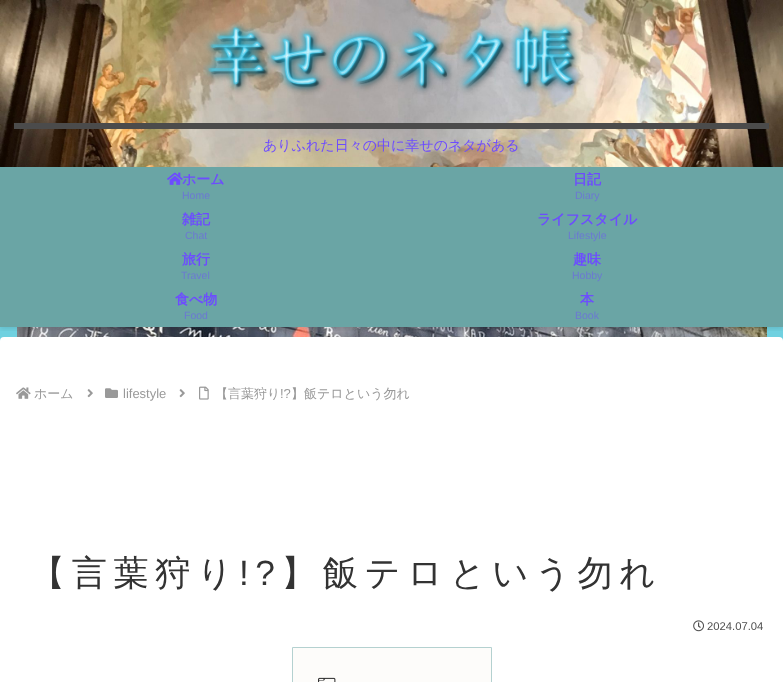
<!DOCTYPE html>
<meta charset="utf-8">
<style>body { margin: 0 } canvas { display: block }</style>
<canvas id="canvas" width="783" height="682"></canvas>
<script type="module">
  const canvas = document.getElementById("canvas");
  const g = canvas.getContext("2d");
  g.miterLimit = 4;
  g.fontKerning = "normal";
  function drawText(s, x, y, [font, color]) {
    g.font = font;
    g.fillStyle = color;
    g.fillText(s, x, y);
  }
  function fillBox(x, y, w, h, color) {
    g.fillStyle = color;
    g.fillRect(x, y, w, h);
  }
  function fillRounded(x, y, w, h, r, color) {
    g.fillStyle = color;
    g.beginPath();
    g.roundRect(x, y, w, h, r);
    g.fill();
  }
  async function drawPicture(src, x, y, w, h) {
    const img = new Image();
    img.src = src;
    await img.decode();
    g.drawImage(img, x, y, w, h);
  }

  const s1 = ["500 14px WenQuanYi Zen Hei", "#6D4CFF"];
  const s2 = ["bold 14px WenQuanYi Zen Hei", "#6D4CFF"];
  const s3 = ["10.5px Liberation Sans", "#6C79D2"];
  const s4 = ["500 13px WenQuanYi Zen Hei", "#999999"];
  const s5 = ["13px Liberation Sans", "#999999"];
  const s6 = ["500 35.25px WenQuanYi Zen Hei", "#333333"];
  const s7 = ["35.25px Liberation Sans", "#333333"];
  const s8 = ["11.25px Liberation Sans", "#4F4F4F"];

  fillBox(0, 0, 783, 682, "#70D1E0");
  await drawPicture("pic1.png", 17, 327, 750, 10);
  fillBox(0, 167, 783, 160, "#6AA5A5");
  g.save();
  g.beginPath();
  g.rect(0, 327, 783, 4);
  g.clip();
  g.fillStyle = "rgba(0, 0, 0, 0.1)";
  g.filter = "blur(2.5px)";
  g.beginPath();
  g.rect(0, 2, 783, 327);
  g.fill();
  g.filter = "none";
  g.restore();
  await drawPicture("pic2.png", 0, 0, 783, 167);
  await drawPicture("pic3.png", 203, 20, 378, 75);
  fillBox(14, 123, 755, 6, "#4B4B4B");
  drawText("ありふれた日々の中に幸せのネタがある", 263, 150, s1);
  await drawPicture("pic4.png", 167, 172, 16, 13);
  drawText("ホーム", 182, 184, s2);
  drawText("Home", 182, 199, s3);
  drawText("日記", 573, 184, s2);
  drawText("Diary", 575, 199, s3);
  drawText("雑記", 182, 224, s2);
  drawText("Chat", 185, 239, s3);
  drawText("ライフスタイル", 537, 224, s2);
  drawText("Lifestyle", 568, 239, s3);
  drawText("旅行", 182, 264, s2);
  drawText("Travel", 181, 279, s3);
  drawText("趣味", 573, 264, s2);
  drawText("Hobby", 572, 279, s3);
  drawText("食べ物", 175, 304, s2);
  drawText("Food", 184, 319, s3);
  drawText("本", 580, 304, s2);
  drawText("Book", 575, 319, s3);
  fillRounded(0, 337, 783, 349, 4, "#FFFFFF");
  await drawPicture("pic5.png", 16, 387, 15, 12);
  drawText("ホーム", 34, 398, s4);
  await drawPicture("pic6.png", 87, 389, 6, 9);
  await drawPicture("pic7.png", 105, 388, 13, 10);
  drawText("lifestyle", 123, 398, s5);
  await drawPicture("pic6.png", 179, 389, 6, 9);
  await drawPicture("pic8.png", 199, 386, 10, 14);
  drawText("【言葉狩り", 215, 398, s4);
  drawText("!?", 280, 398, s5);
  drawText("】飯テロという勿れ", 291, 398, s4);
  g.letterSpacing = "6.5px";
  drawText("【言葉狩り", 30, 585, s6);
  drawText("!?", 239, 585, s7);
  drawText("】飯テロという勿れ", 281, 585, s6);
  await drawPicture("pic9.png", 693, 620, 11, 12);
  g.letterSpacing = "0px";
  drawText("2024.07.04", 707, 630, s8);
  g.fillStyle = "#FDFCFA";
  g.beginPath();
  g.rect(292.5, 647.5, 199, 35);
  g.fill();
  g.strokeStyle = "#B4D1D0";
  g.stroke();
  await drawPicture("pic10.png", 318, 677, 18, 5);
</script>
